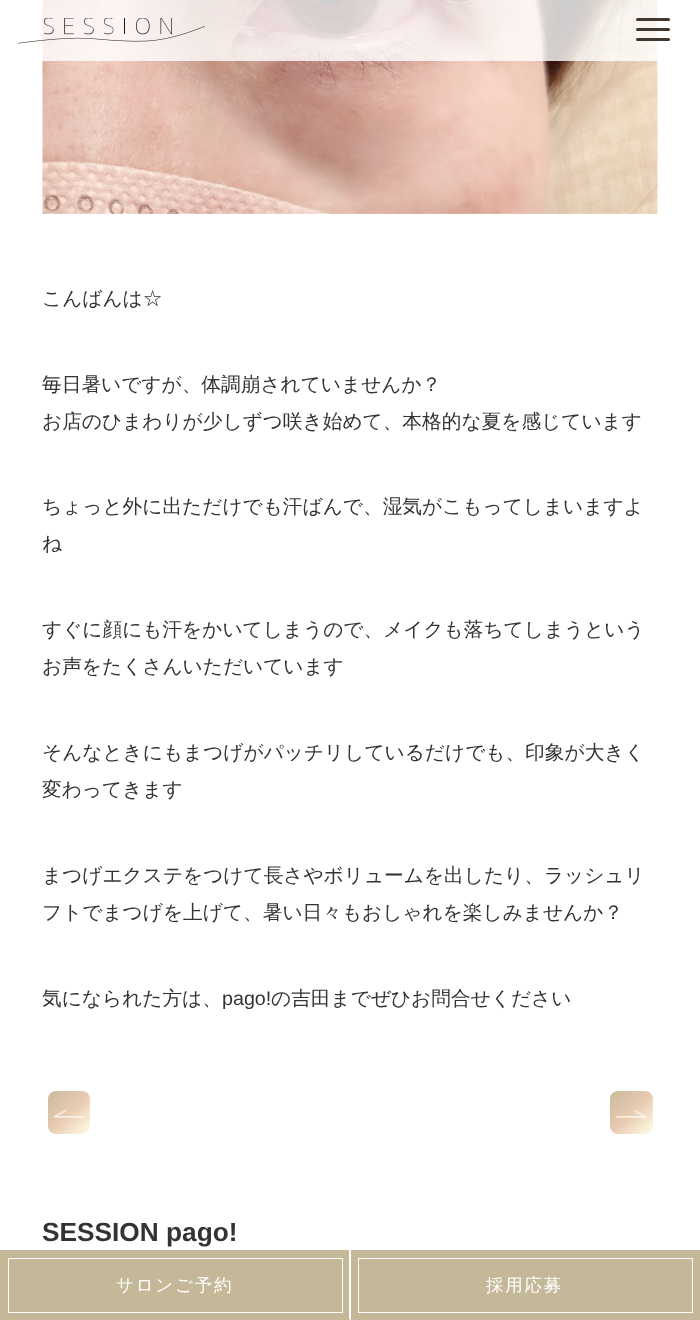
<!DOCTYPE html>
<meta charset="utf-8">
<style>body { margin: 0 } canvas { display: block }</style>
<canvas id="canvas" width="700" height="1320"></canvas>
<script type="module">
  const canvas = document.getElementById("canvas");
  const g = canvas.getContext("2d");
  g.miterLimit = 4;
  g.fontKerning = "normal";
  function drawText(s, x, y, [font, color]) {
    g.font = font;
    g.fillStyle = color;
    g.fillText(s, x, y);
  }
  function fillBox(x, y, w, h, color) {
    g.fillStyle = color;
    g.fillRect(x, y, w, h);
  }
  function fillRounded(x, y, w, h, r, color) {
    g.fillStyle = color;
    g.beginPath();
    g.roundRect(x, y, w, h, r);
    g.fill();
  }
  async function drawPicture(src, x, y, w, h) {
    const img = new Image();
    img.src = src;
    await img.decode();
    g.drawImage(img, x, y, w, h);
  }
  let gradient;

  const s1 = ["500 19.7px WenQuanYi Zen Hei", "#333333"];
  const s2 = ["19.7px Liberation Sans", "#333333"];
  const s3 = ["bold 26.25px Liberation Sans", "#333333"];
  const s4 = ["500 17.5px WenQuanYi Zen Hei", "#FFFFFF"];

  fillBox(0, 0, 700, 1320, "#FFFFFF");
  await drawPicture("pic2.png", 42, 0, 616, 214);
  fillBox(42, 0, 616, 61, "rgba(255, 255, 255, 0.8)");
  await drawPicture("pic1.png", 18, 18, 187, 26);
  fillRounded(636, 18, 34, 3, 1.5, "#42382F");
  fillRounded(636, 28, 34, 3, 1.5, "#42382F");
  fillRounded(636, 38, 34, 3, 1.5, "#42382F");
  drawText("こんばんは☆", 42, 305, s1);
  drawText("毎日暑いですが、体調崩されていませんか？", 42, 391, s1);
  drawText("お店のひまわりが少しずつ咲き始めて、本格的な夏を感じています", 42, 428, s1);
  drawText("ちょっと外に出ただけでも汗ばんで、湿気がこもってしまいますよ", 42, 513, s1);
  drawText("ね", 42, 550, s1);
  drawText("すぐに顔にも汗をかいてしまうので、メイクも落ちてしまうという", 42, 636, s1);
  drawText("お声をたくさんいただいています", 42, 673, s1);
  drawText("そんなときにもまつげがパッチリしているだけでも、印象が大きく", 42, 759, s1);
  drawText("変わってきます", 42, 796, s1);
  drawText("まつげエクステをつけて長さやボリュームを出したり、ラッシュリ", 42, 882, s1);
  drawText("フトでまつげを上げて、暑い日々もおしゃれを楽しみませんか？", 42, 919, s1);
  drawText("気になられた方は、", 42, 1005, s1);
  drawText("pago!", 222, 1005, s2);
  drawText("の吉田までぜひお問合せください", 271, 1005, s1);
  gradient = g.createLinearGradient(48, 1091, 90, 1134);
  gradient.addColorStop(0, "#C8BB9B");
  gradient.addColorStop(0.5, "#E8CAB1");
  gradient.addColorStop(1, "#FFFFE6");
  g.fillStyle = gradient;
  g.beginPath();
  g.roundRect(48, 1091, 42, 43, 8);
  g.fill();
  await drawPicture("pic3.png", 53, 1110, 32, 8);
  gradient = g.createLinearGradient(610, 1091, 653, 1134);
  gradient.addColorStop(0, "#C8BB9B");
  gradient.addColorStop(0.5, "#E8CAB1");
  gradient.addColorStop(1, "#FFFFE6");
  g.fillStyle = gradient;
  g.beginPath();
  g.roundRect(610, 1091, 43, 43, 8);
  g.fill();
  await drawPicture("pic4.png", 615, 1110, 32, 8);
  drawText("SESSION pago!", 42, 1241, s3);
  fillBox(0, 1250, 349, 69, "#C4B898");
  fillBox(0, 1319, 350, 1, "#C4B898");
  g.strokeStyle = "#FFFFFF";
  g.strokeRect(8.5, 1258.5, 334, 54);
  g.letterSpacing = "1.75px";
  drawText("サロンご予約", 116, 1291, s4);
  fillBox(351, 1250, 349, 70, "#C4B898");
  g.strokeRect(358.5, 1258.5, 334, 54);
  drawText("採用応募", 486, 1291, s4);
</script>
